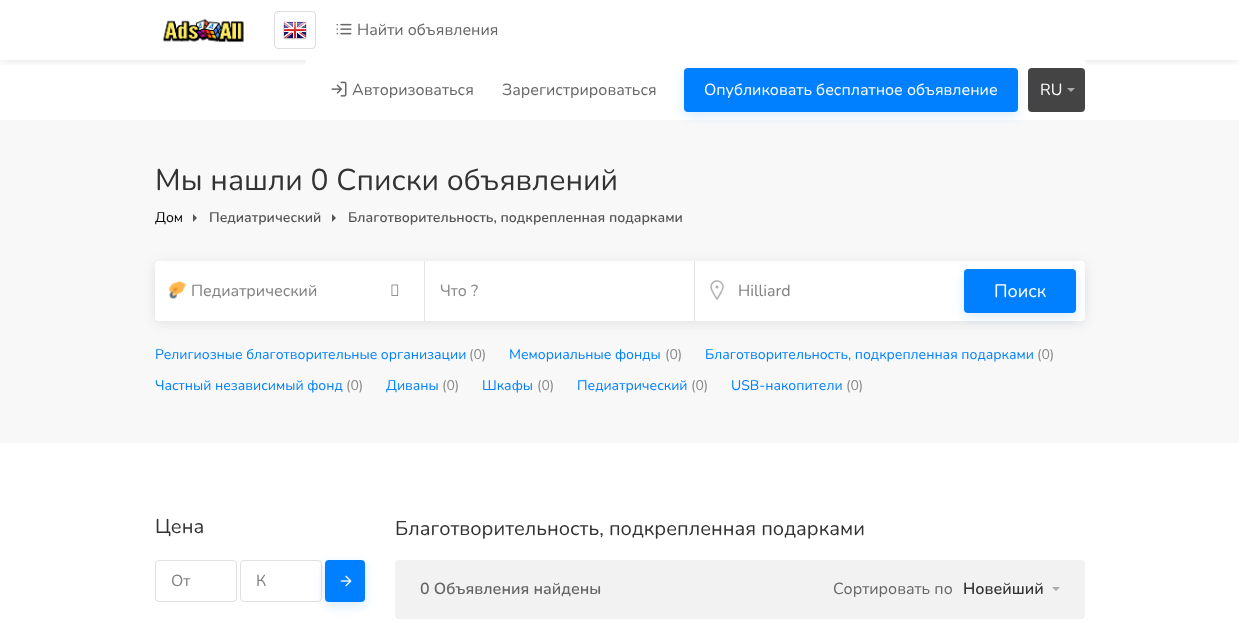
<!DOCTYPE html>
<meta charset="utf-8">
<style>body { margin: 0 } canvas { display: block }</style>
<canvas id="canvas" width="1239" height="638"></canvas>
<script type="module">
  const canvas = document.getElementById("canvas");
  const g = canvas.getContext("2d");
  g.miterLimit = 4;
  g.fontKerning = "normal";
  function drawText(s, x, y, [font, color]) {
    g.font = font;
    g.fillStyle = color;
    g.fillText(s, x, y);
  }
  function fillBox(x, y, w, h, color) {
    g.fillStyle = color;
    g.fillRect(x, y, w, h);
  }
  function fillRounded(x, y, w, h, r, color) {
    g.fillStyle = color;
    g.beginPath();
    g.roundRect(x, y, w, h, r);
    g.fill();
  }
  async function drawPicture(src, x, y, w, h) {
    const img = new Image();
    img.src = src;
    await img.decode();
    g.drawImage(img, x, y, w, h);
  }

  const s1 = ["16px Nunito", "#666666"];
  const s2 = ["16px Nunito", "#FFFFFF"];
  const s3 = ["30px Nunito", "#333333"];
  const s4 = ["14px Nunito", "#000000"];
  const s5 = ["600 14px Nunito", "#555555"];
  const s6 = ["16px Nunito", "#808080"];
  const s7 = ["16px Nunito", "#888888"];
  const s8 = ["18px Nunito", "#FFFFFF"];
  const s9 = ["14px Nunito", "#0080FF"];
  const s10 = ["14px Nunito", "#888888"];
  const s11 = ["20px Nunito", "#333333"];
  const s12 = ["600 16px Nunito", "#666666"];
  const s13 = ["600 16px Nunito", "#333333"];

  fillBox(0, 0, 1239, 638, "#FFFFFF");
  g.save();
  g.beginPath();
  g.rect(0, 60, 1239, 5);
  g.clip();
  g.fillStyle = "rgba(0, 0, 0, 0.12)";
  g.filter = "blur(5px)";
  g.beginPath();
  g.rect(0, 0, 1239, 60);
  g.fill();
  g.filter = "none";
  g.restore();
  await drawPicture("pic1.png", 162, 19, 82, 24);
  g.beginPath();
  g.roundRect(274.5, 11.5, 41, 37, 3.5);
  g.strokeStyle = "#DDDDDD";
  g.stroke();
  await drawPicture("pic2.png", 283, 21, 24, 19);
  await drawPicture("pic3.png", 336, 23, 16, 12);
  drawText("Найти объявления", 357, 35, s1);
  fillBox(306, 60, 779, 7, "#FFFFFF");
  await drawPicture("pic4.png", 331, 81, 16, 16);
  drawText("Авторизоваться", 352, 95, s1);
  drawText("Зарегистрироваться", 502, 95, s1);
  fillBox(0, 120, 1239, 323, "#F8F8F8");
  g.fillStyle = "rgba(0, 128, 255, 0.15)";
  g.filter = "blur(6px)";
  g.beginPath();
  g.roundRect(684, 72, 334, 44, 4);
  g.fill();
  g.filter = "none";
  fillRounded(684, 68, 334, 44, 4, "#0080FF");
  drawText("Опубликовать бесплатное объявление", 704, 95, s2);
  fillRounded(1028, 68, 57, 44, 4, "#444444");
  drawText("RU", 1040, 95, s2);
  g.fillStyle = "#AAAAAA";
  g.beginPath();
  g.moveTo(1067, 88);
  g.lineTo(1075, 88);
  g.lineTo(1071, 92);
  g.closePath();
  g.fill();
  drawText("Мы нашли 0 Списки объявлений", 155, 190, s3);
  drawText("Дом", 155, 222, s4);
  g.fillStyle = "#555555";
  g.beginPath();
  g.moveTo(193, 222);
  g.lineTo(193, 214);
  g.lineTo(197, 218);
  g.closePath();
  g.fill();
  drawText("Педиатрический", 209, 222, s5);
  g.beginPath();
  g.moveTo(332, 222);
  g.lineTo(332, 214);
  g.lineTo(336, 218);
  g.closePath();
  g.fill();
  drawText("Благотворительность, подкрепленная подарками", 348, 222, s5);
  g.fillStyle = "rgba(0, 0, 0, 0.09)";
  g.filter = "blur(6px)";
  g.beginPath();
  g.roundRect(155, 263, 930, 60, 4);
  g.fill();
  g.filter = "none";
  fillRounded(155, 261, 930, 60, 4, "#FFFFFF");
  fillBox(424, 261, 1, 60, "#E4E4E4");
  fillBox(155, 263, 1, 57, "#FFFFFF");
  await drawPicture("pic5.png", 168, 281, 19, 19);
  drawText("Педиатрический", 191, 296, s6);
  await drawPicture("pic6.png", 391, 284, 8, 12);
  fillBox(694, 261, 1, 60, "#E4E4E4");
  drawText("Что ?", 440, 296, s7);
  await drawPicture("pic7.png", 710, 280, 14, 20);
  drawText("Hilliard", 738, 296, s6);
  g.fillStyle = "rgba(0, 128, 255, 0.15)";
  g.filter = "blur(6px)";
  g.beginPath();
  g.roundRect(964, 273, 112, 44, 4);
  g.fill();
  g.filter = "none";
  fillRounded(964, 269, 112, 44, 4, "#0080FF");
  drawText("Поиск", 994, 297, s8);
  drawText("Религиозные благотворительные организации", 155, 359, s9);
  drawText("(0)", 469, 359, s10);
  drawText("Мемориальные фонды", 509, 359, s9);
  drawText("(0)", 665, 359, s10);
  drawText("Благотворительность, подкрепленная подарками", 705, 359, s9);
  drawText("(0)", 1037, 359, s10);
  drawText("Частный независимый фонд", 155, 390, s9);
  drawText("(0)", 346, 390, s10);
  drawText("Диваны", 386, 390, s9);
  drawText("(0)", 442, 390, s10);
  drawText("Шкафы", 482, 390, s9);
  drawText("(0)", 537, 390, s10);
  drawText("Педиатрический", 577, 390, s9);
  drawText("(0)", 691, 390, s10);
  drawText("USB-накопители", 731, 390, s9);
  drawText("(0)", 846, 390, s10);
  drawText("Цена", 155, 533, s11);
  g.beginPath();
  g.roundRect(155.5, 560.5, 81, 41, 3.5);
  g.strokeStyle = "#E0E0E0";
  g.stroke();
  drawText("От", 171, 586, s6);
  g.beginPath();
  g.roundRect(240.5, 560.5, 81, 41, 3.5);
  g.stroke();
  drawText("К", 256, 586, s6);
  g.fillStyle = "rgba(0, 128, 255, 0.15)";
  g.filter = "blur(6px)";
  g.beginPath();
  g.roundRect(325, 564, 40, 42, 4);
  g.fill();
  g.filter = "none";
  fillRounded(325, 560, 40, 42, 4, "#0080FF");
  await drawPicture("pic8.png", 340, 575, 12, 12);
  drawText("Благотворительность, подкрепленная подарками", 395, 535, s11);
  fillRounded(395, 560, 690, 59, 4, "#F2F2F2");
  drawText("0 Объявления найдены", 420, 594, s12);
  drawText("Сортировать по", 833, 594, s1);
  drawText("Новейший", 963, 594, s13);
  g.fillStyle = "#AAAAAA";
  g.beginPath();
  g.moveTo(1052, 587);
  g.lineTo(1060, 587);
  g.lineTo(1056, 591);
  g.closePath();
  g.fill();
</script>
